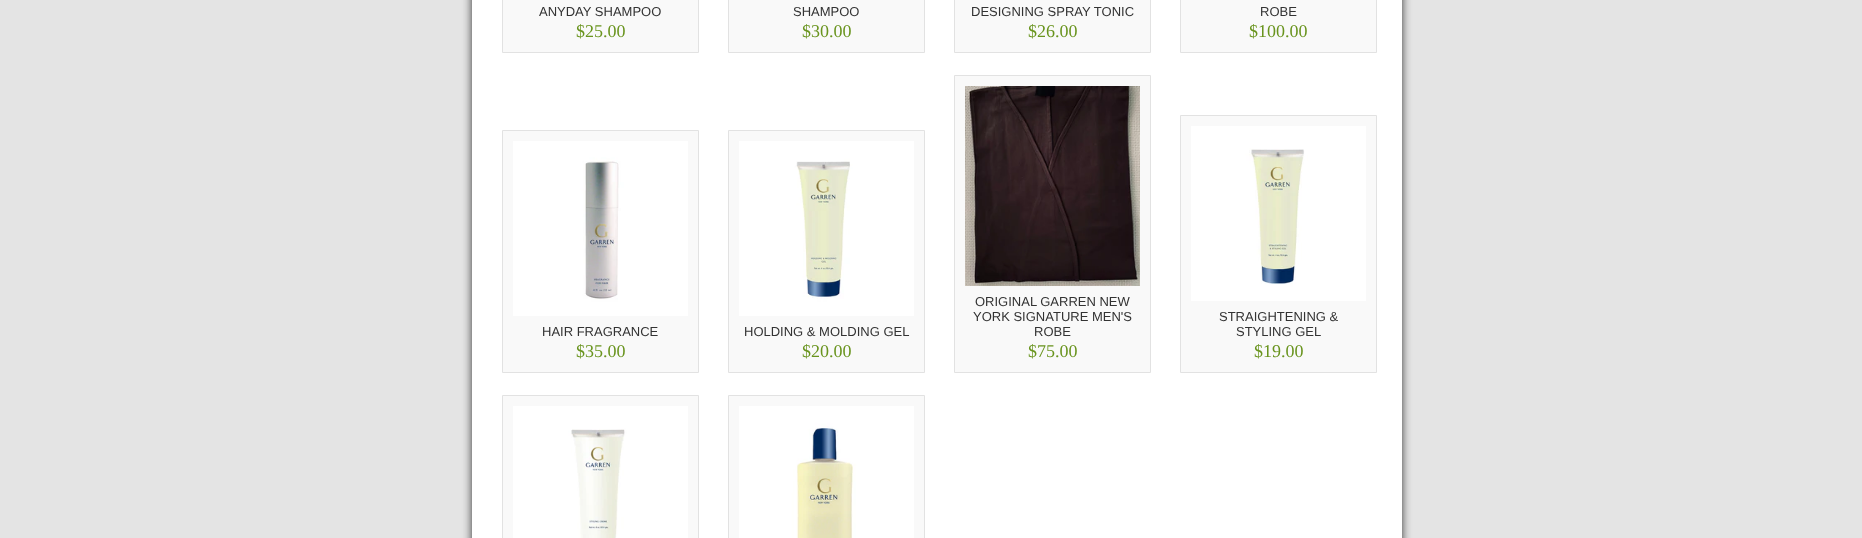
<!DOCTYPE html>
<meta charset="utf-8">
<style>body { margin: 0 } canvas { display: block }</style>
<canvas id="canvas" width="1862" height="538"></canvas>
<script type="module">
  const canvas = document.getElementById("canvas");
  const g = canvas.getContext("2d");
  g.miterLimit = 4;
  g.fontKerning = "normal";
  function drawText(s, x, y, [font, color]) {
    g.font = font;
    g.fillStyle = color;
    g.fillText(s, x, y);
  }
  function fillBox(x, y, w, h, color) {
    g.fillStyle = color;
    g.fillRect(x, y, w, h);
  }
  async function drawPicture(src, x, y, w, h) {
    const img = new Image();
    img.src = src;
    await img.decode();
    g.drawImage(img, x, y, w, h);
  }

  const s1 = ["13px Liberation Sans", "#333333"];
  const s2 = ["18px Liberation Serif", "#69941E"];

  fillBox(0, 0, 1862, 538, "#E4E4E4");
  g.fillStyle = "#333333";
  g.filter = "blur(5px)";
  g.beginPath();
  g.roundRect(472, -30, 930, 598, 15);
  g.fill();
  g.filter = "none";
  fillBox(472, 0, 930, 538, "#FFFFFF");
  g.fillStyle = "#F9F9F9";
  g.beginPath();
  g.rect(502.5, -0.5, 196, 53);
  g.fill();
  g.strokeStyle = "#E2E2E2";
  g.stroke();
  drawText("ANYDAY SHAMPOO", 539, 16, s1);
  drawText("$25.00", 576, 37, s2);
  g.fillStyle = "#F9F9F9";
  g.beginPath();
  g.rect(728.5, -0.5, 196, 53);
  g.fill();
  g.stroke();
  drawText("SHAMPOO", 793, 16, s1);
  drawText("$30.00", 802, 37, s2);
  g.fillStyle = "#F9F9F9";
  g.beginPath();
  g.rect(954.5, -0.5, 196, 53);
  g.fill();
  g.stroke();
  drawText("DESIGNING SPRAY TONIC", 971, 16, s1);
  drawText("$26.00", 1028, 37, s2);
  g.fillStyle = "#F9F9F9";
  g.beginPath();
  g.rect(1180.5, -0.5, 196, 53);
  g.fill();
  g.stroke();
  drawText("ROBE", 1260, 16, s1);
  drawText("$100.00", 1249, 37, s2);
  g.fillStyle = "#F9F9F9";
  g.beginPath();
  g.rect(502.5, 130.5, 196, 242);
  g.fill();
  g.stroke();
  await drawPicture("pic1.png", 513, 141, 175, 175);
  drawText("HAIR FRAGRANCE", 542, 336, s1);
  drawText("$35.00", 576, 357, s2);
  g.fillStyle = "#F9F9F9";
  g.beginPath();
  g.rect(728.5, 130.5, 196, 242);
  g.fill();
  g.stroke();
  await drawPicture("pic2.png", 739, 141, 175, 175);
  drawText("HOLDING & MOLDING GEL", 744, 336, s1);
  drawText("$20.00", 802, 357, s2);
  g.fillStyle = "#F9F9F9";
  g.beginPath();
  g.rect(954.5, 75.5, 196, 297);
  g.fill();
  g.stroke();
  await drawPicture("pic3.png", 965, 86, 175, 200);
  drawText("ORIGINAL GARREN NEW", 975, 306, s1);
  drawText("YORK SIGNATURE MEN'S", 973, 321, s1);
  drawText("ROBE", 1034, 336, s1);
  drawText("$75.00", 1028, 357, s2);
  g.fillStyle = "#F9F9F9";
  g.beginPath();
  g.rect(1180.5, 115.5, 196, 257);
  g.fill();
  g.stroke();
  await drawPicture("pic4.png", 1191, 126, 175, 175);
  drawText("STRAIGHTENING &", 1219, 321, s1);
  drawText("STYLING GEL", 1236, 336, s1);
  drawText("$19.00", 1254, 357, s2);
  g.fillStyle = "#F9F9F9";
  g.beginPath();
  g.rect(502.5, 395.5, 196, 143);
  g.fill();
  g.stroke();
  await drawPicture("pic5.png", 513, 406, 175, 132);
  g.beginPath();
  g.rect(728.5, 395.5, 196, 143);
  g.fill();
  g.stroke();
  await drawPicture("pic6.png", 739, 406, 175, 132);
</script>
